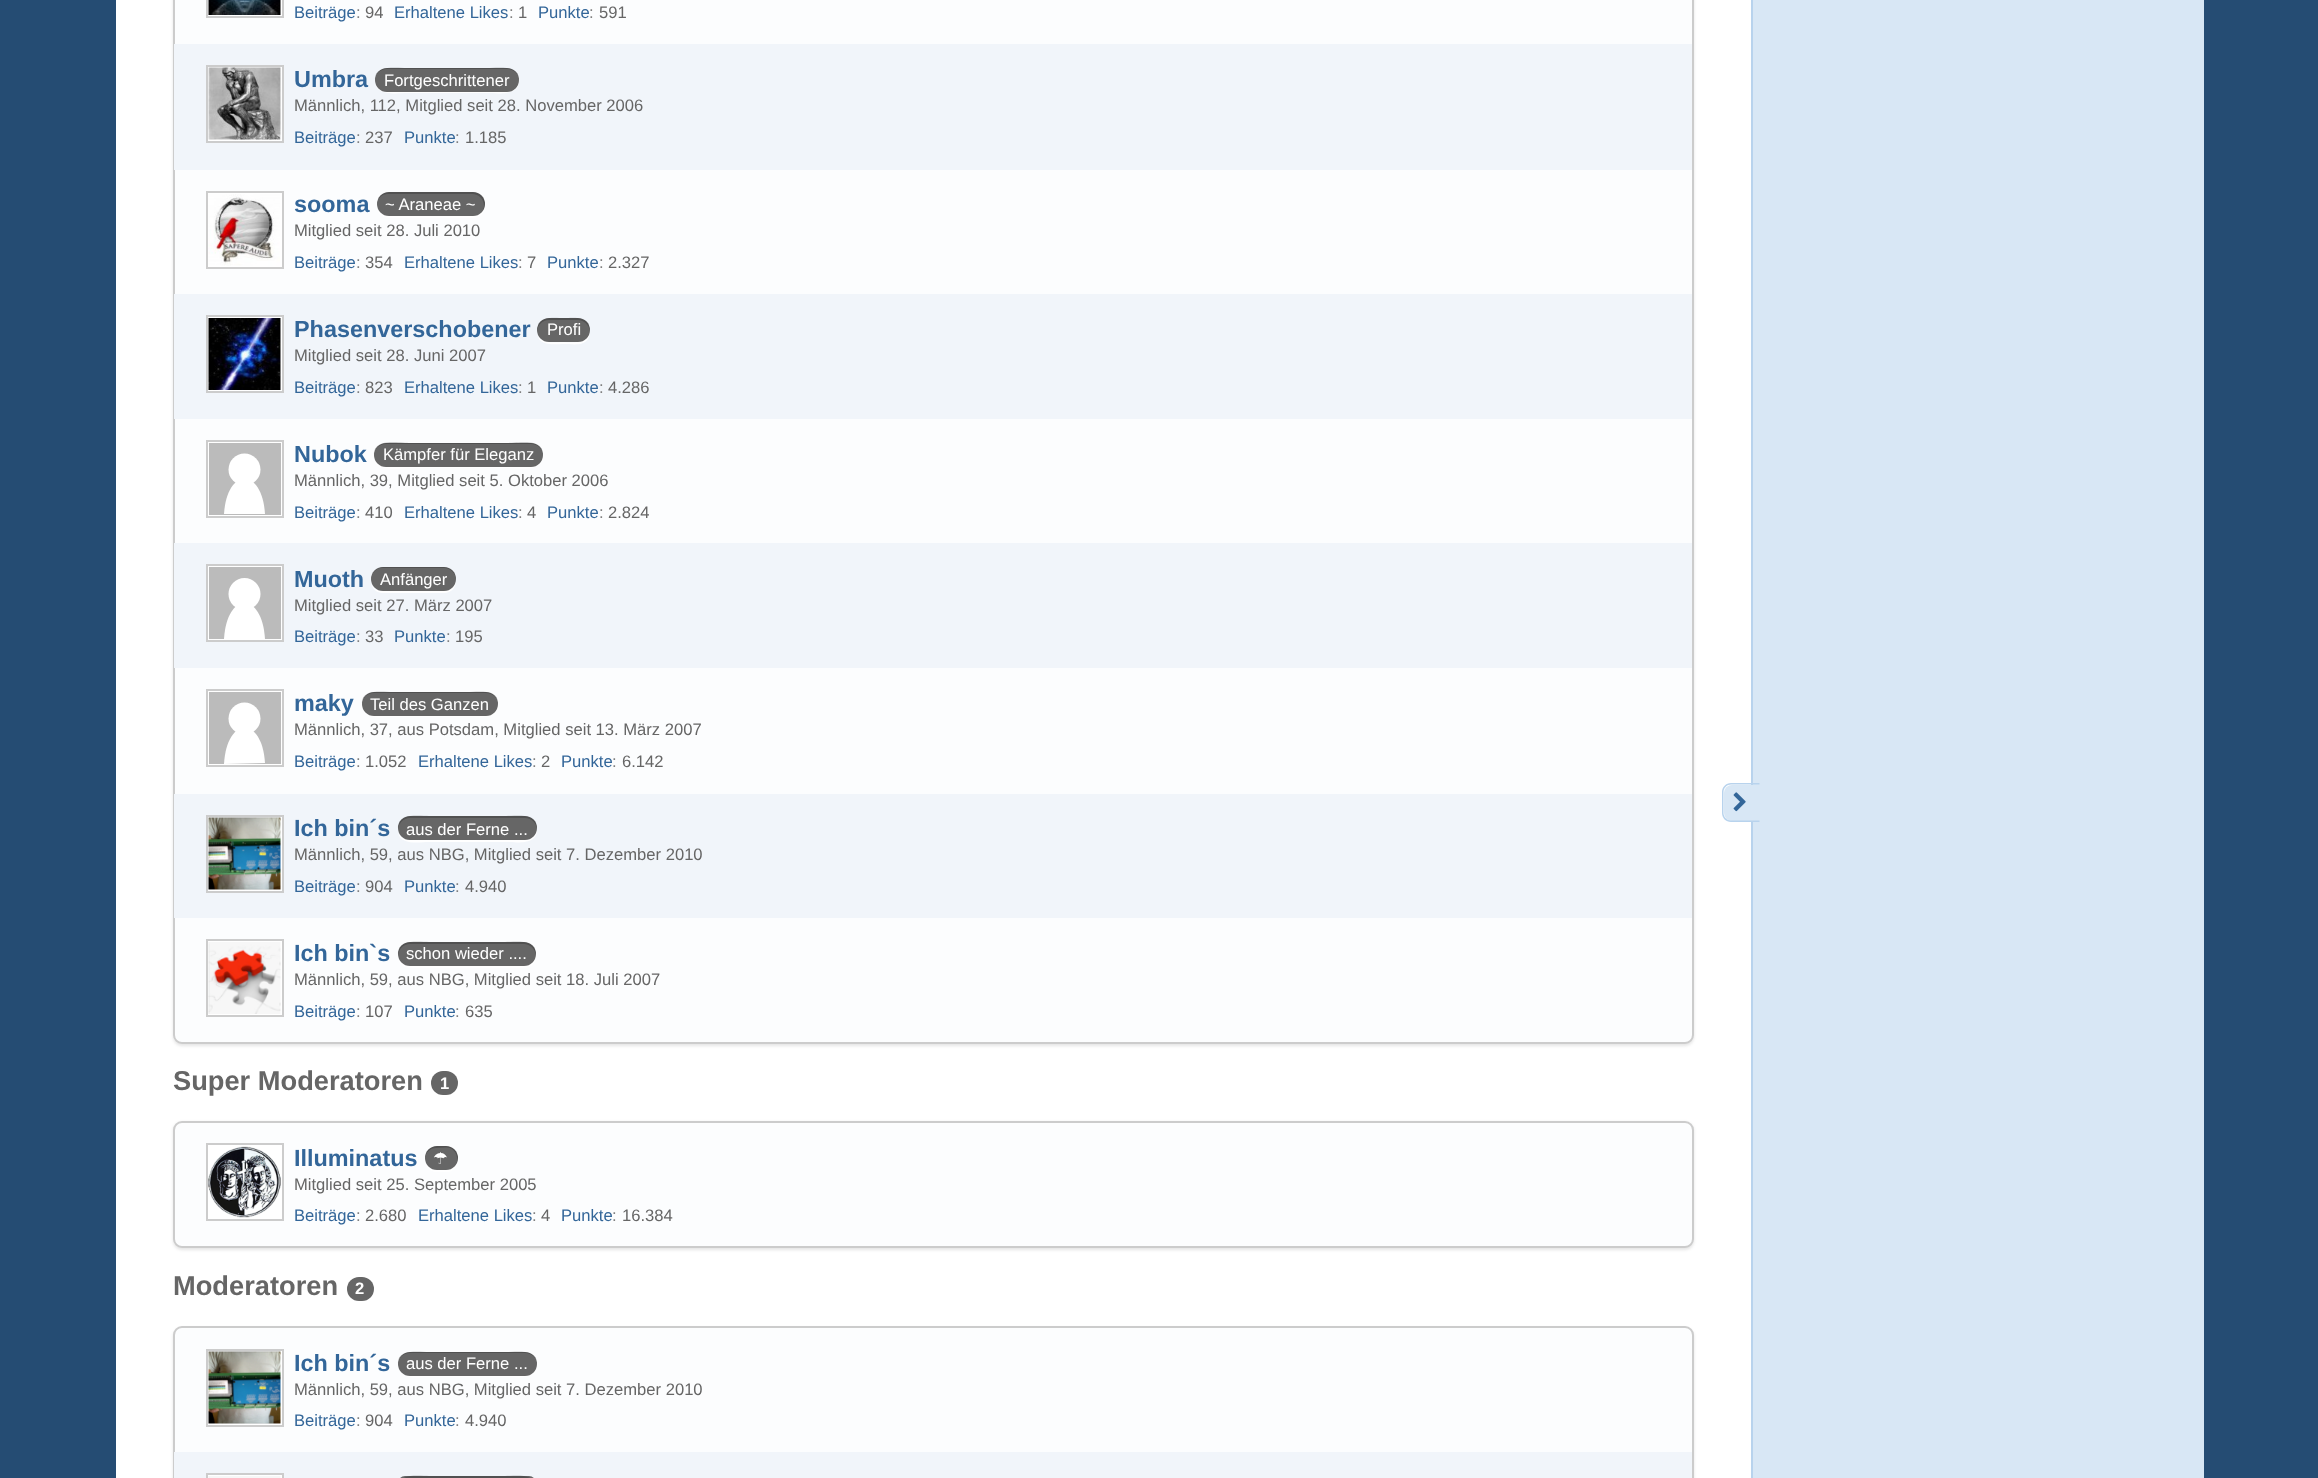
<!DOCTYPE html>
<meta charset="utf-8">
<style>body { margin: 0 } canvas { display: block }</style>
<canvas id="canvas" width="2318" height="1478"></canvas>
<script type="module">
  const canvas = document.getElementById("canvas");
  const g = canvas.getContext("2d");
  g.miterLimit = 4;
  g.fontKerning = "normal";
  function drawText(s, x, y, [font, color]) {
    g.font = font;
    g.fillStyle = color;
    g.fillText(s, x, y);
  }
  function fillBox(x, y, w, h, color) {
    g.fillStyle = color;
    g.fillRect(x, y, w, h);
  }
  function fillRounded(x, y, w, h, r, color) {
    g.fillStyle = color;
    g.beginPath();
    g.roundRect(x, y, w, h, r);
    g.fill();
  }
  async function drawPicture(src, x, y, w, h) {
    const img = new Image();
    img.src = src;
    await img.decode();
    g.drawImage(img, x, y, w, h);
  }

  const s1 = ["16.6px Liberation Sans", "#336699"];
  const s2 = ["16.6px Liberation Sans", "#808080"];
  const s3 = ["16.6px Liberation Sans", "#666666"];
  const s4 = ["bold 23.4px Liberation Sans", "#336699"];
  const s5 = ["16.6px Liberation Sans", "#FFFFFF"];
  const s6 = ["bold 27.25px Liberation Sans", "#666666"];
  const s7 = ["bold 16.6px Liberation Sans", "#FFFFFF"];
  const s8 = ["16.6px DejaVu Sans", "#FFFFFF"];

  fillBox(0, 0, 2318, 1478, "#254C73");
  fillBox(1753, 0, 451, 1478, "#D8E7F5");
  fillBox(116, 0, 1635, 1478, "#FFFFFF");
  g.fillStyle = "rgba(0, 0, 0, 0.1)";
  g.filter = "blur(1.5px)";
  g.beginPath();
  g.roundRect(173, -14, 1521, 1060, 9);
  g.fill();
  g.filter = "none";
  g.fillStyle = "#FCFDFE";
  g.beginPath();
  g.roundRect(174, -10, 1519, 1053, 8);
  g.fill();
  g.strokeStyle = "#CCCCCC";
  g.lineWidth = 2;
  g.stroke();
  g.fillStyle = "#FFFFFF";
  g.beginPath();
  g.rect(207, -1, 76, 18);
  g.fill();
  g.stroke();
  await drawPicture("pic1.png", 208, 0, 73, 15);
  drawText("Beiträge", 294, 18, s1);
  drawText(":", 356, 18, s2);
  drawText("94", 365, 18, s3);
  drawText("Erhaltene Likes", 394, 18, s1);
  drawText(":", 509, 18, s2);
  drawText("1", 518, 18, s3);
  drawText("Punkte", 538, 18, s1);
  drawText(":", 589, 18, s2);
  drawText("591", 599, 18, s3);
  fillBox(174, 44, 1518, 126, "#F1F5FA");
  g.fillStyle = "#FFFFFF";
  g.beginPath();
  g.rect(207, 66, 76, 76);
  g.fill();
  g.stroke();
  await drawPicture("pic2.png", 208, 67, 73, 73);
  drawText("Umbra", 294, 87, s4);
  g.fillStyle = "#FFFFFF";
  g.beginPath();
  g.moveTo(375, 80);
  g.bezierCurveTo(374, 97, 398, 93, 407, 93);
  g.lineTo(487, 93);
  g.bezierCurveTo(496, 93, 520, 97, 519, 80);
  g.bezierCurveTo(519, 87, 513, 92, 507, 92);
  g.lineTo(387, 92);
  g.bezierCurveTo(381, 92, 375, 87, 375, 80);
  g.closePath();
  g.fill();
  fillRounded(375, 68, 144, 24, 12, "#666666");
  g.fillStyle = "rgba(0, 0, 0, 0.2)";
  g.beginPath();
  g.moveTo(387, 69);
  g.lineTo(507, 69);
  g.bezierCurveTo(514, 69, 519, 74, 519, 80);
  g.bezierCurveTo(520, 64, 496, 68, 487, 68);
  g.lineTo(407, 68);
  g.bezierCurveTo(398, 68, 374, 64, 375, 80);
  g.bezierCurveTo(375, 74, 380, 69, 387, 69);
  g.closePath();
  g.fill();
  drawText("Fortgeschrittener", 384, 86, s5);
  drawText("Männlich, 112, Mitglied seit 28. November 2006", 294, 111, s3);
  drawText("Beiträge", 294, 143, s1);
  drawText(":", 356, 143, s2);
  drawText("237", 365, 143, s3);
  drawText("Punkte", 404, 143, s1);
  drawText(":", 455, 143, s2);
  drawText("1.185", 465, 143, s3);
  g.fillStyle = "#FFFFFF";
  g.beginPath();
  g.rect(207, 192, 76, 76);
  g.fill();
  g.stroke();
  await drawPicture("pic3.png", 208, 194, 72, 72);
  drawText("sooma", 294, 212, s4);
  g.fillStyle = "#FFFFFF";
  g.beginPath();
  g.moveTo(377, 208);
  g.bezierCurveTo(378, 214, 383, 218, 389, 218);
  g.lineTo(473, 218);
  g.bezierCurveTo(480, 218, 485, 213, 485, 206);
  g.lineTo(484, 202);
  g.lineTo(484, 204);
  g.bezierCurveTo(484, 211, 479, 216, 472, 216);
  g.lineTo(388, 216);
  g.bezierCurveTo(383, 216, 379, 213, 377, 208);
  g.closePath();
  g.fill();
  fillRounded(377, 192, 108, 24, 12, "#666666");
  g.fillStyle = "rgba(0, 0, 0, 0.2)";
  g.beginPath();
  g.moveTo(388, 194);
  g.lineTo(472, 194);
  g.bezierCurveTo(479, 194, 484, 199, 484, 206);
  g.lineTo(483, 211);
  g.bezierCurveTo(484, 209, 485, 206, 485, 204);
  g.bezierCurveTo(485, 197, 480, 192, 473, 192);
  g.lineTo(389, 192);
  g.bezierCurveTo(384, 192, 379, 195, 378, 200);
  g.bezierCurveTo(380, 196, 384, 194, 388, 194);
  g.closePath();
  g.fill();
  drawText("~ Araneae ~", 385, 210, s5);
  drawText("Mitglied seit 28. Juli 2010", 294, 236, s3);
  drawText("Beiträge", 294, 268, s1);
  drawText(":", 356, 268, s2);
  drawText("354", 365, 268, s3);
  drawText("Erhaltene Likes", 404, 268, s1);
  drawText(":", 518, 268, s2);
  drawText("7", 527, 268, s3);
  drawText("Punkte", 547, 268, s1);
  drawText(":", 599, 268, s2);
  drawText("2.327", 608, 268, s3);
  fillBox(174, 294, 1518, 125, "#F1F5FA");
  g.fillStyle = "#FFFFFF";
  g.beginPath();
  g.rect(207, 316, 76, 76);
  g.fill();
  g.stroke();
  await drawPicture("pic4.png", 208, 318, 73, 72);
  drawText("Phasenverschobener", 294, 337, s4);
  g.fillStyle = "#FFFFFF";
  g.beginPath();
  g.moveTo(537, 331);
  g.bezierCurveTo(537, 334, 538, 336, 539, 339);
  g.bezierCurveTo(544, 346, 556, 344, 564, 344);
  g.bezierCurveTo(572, 344, 585, 347, 589, 337);
  g.bezierCurveTo(590, 334, 590, 331, 589, 328);
  g.bezierCurveTo(590, 331, 589, 334, 587, 337);
  g.bezierCurveTo(582, 344, 571, 342, 563, 342);
  g.bezierCurveTo(554, 342, 538, 345, 537, 331);
  g.closePath();
  g.fill();
  fillRounded(537, 318, 53, 24, 12, "#666666");
  g.fillStyle = "rgba(0, 0, 0, 0.2)";
  g.beginPath();
  g.moveTo(549, 320);
  g.lineTo(578, 320);
  g.bezierCurveTo(584, 320, 589, 325, 590, 331);
  g.bezierCurveTo(590, 328, 589, 326, 588, 323);
  g.bezierCurveTo(583, 316, 571, 318, 564, 318);
  g.bezierCurveTo(556, 318, 544, 316, 539, 323);
  g.bezierCurveTo(538, 326, 537, 328, 537, 331);
  g.bezierCurveTo(538, 325, 542, 320, 549, 320);
  g.closePath();
  g.fill();
  drawText("Profi", 547, 335, s5);
  drawText("Mitglied seit 28. Juni 2007", 294, 361, s3);
  drawText("Beiträge", 294, 393, s1);
  drawText(":", 356, 393, s2);
  drawText("823", 365, 393, s3);
  drawText("Erhaltene Likes", 404, 393, s1);
  drawText(":", 518, 393, s2);
  drawText("1", 527, 393, s3);
  drawText("Punkte", 547, 393, s1);
  drawText(":", 599, 393, s2);
  drawText("4.286", 608, 393, s3);
  g.fillStyle = "#FFFFFF";
  g.beginPath();
  g.rect(207, 441, 76, 76);
  g.fill();
  g.stroke();
  fillBox(209, 443, 72, 72, "#BBBBBB");
  g.fillStyle = "#FFFFFF";
  g.beginPath();
  g.moveTo(224, 514);
  g.bezierCurveTo(227, 467, 262, 467, 265, 514);
  g.fill();
  g.beginPath();
  g.arc(244.5, 469.5, 16, 0, Math.PI * 2);
  g.fill();
  drawText("Nubok", 294, 462, s4);
  g.fillStyle = "#FFFFFF";
  g.beginPath();
  g.moveTo(374, 459);
  g.bezierCurveTo(378, 473, 402, 468, 410, 468);
  g.lineTo(507, 468);
  g.bezierCurveTo(515, 468, 544, 474, 543, 455);
  g.bezierCurveTo(543, 462, 537, 466, 531, 466);
  g.lineTo(386, 466);
  g.bezierCurveTo(380, 466, 376, 463, 374, 459);
  g.closePath();
  g.fill();
  fillRounded(374, 443, 169, 24, 12, "#666666");
  g.fillStyle = "rgba(0, 0, 0, 0.2)";
  g.beginPath();
  g.moveTo(386, 444);
  g.lineTo(531, 444);
  g.bezierCurveTo(538, 444, 543, 449, 543, 455);
  g.bezierCurveTo(544, 437, 515, 443, 507, 443);
  g.lineTo(410, 443);
  g.bezierCurveTo(402, 443, 373, 437, 374, 455);
  g.bezierCurveTo(374, 449, 379, 444, 386, 444);
  g.closePath();
  g.fill();
  drawText("Kämpfer für Eleganz", 383, 460, s5);
  drawText("Männlich, 39, Mitglied seit 5. Oktober 2006", 294, 486, s3);
  drawText("Beiträge", 294, 518, s1);
  drawText(":", 356, 518, s2);
  drawText("410", 365, 518, s3);
  drawText("Erhaltene Likes", 404, 518, s1);
  drawText(":", 518, 518, s2);
  drawText("4", 527, 518, s3);
  drawText("Punkte", 547, 518, s1);
  drawText(":", 599, 518, s2);
  drawText("2.824", 608, 518, s3);
  fillBox(174, 543, 1518, 125, "#F1F5FA");
  g.fillStyle = "#FFFFFF";
  g.beginPath();
  g.rect(207, 565, 76, 76);
  g.fill();
  g.stroke();
  fillBox(209, 567, 72, 72, "#BBBBBB");
  g.fillStyle = "#FFFFFF";
  g.beginPath();
  g.moveTo(224, 639);
  g.bezierCurveTo(227, 591, 262, 591, 265, 639);
  g.fill();
  g.beginPath();
  g.arc(244.5, 594, 16, 0, Math.PI * 2);
  g.fill();
  drawText("Muoth", 294, 587, s4);
  g.fillStyle = "#FFFFFF";
  g.beginPath();
  g.moveTo(371, 583);
  g.bezierCurveTo(372, 589, 377, 593, 383, 593);
  g.lineTo(444, 593);
  g.bezierCurveTo(451, 593, 456, 588, 456, 581);
  g.lineTo(456, 580);
  g.bezierCurveTo(455, 586, 450, 591, 444, 591);
  g.lineTo(382, 591);
  g.bezierCurveTo(377, 591, 373, 588, 371, 583);
  g.closePath();
  g.fill();
  fillRounded(371, 567, 85, 24, 12, "#666666");
  g.fillStyle = "rgba(0, 0, 0, 0.2)";
  g.beginPath();
  g.moveTo(382, 568);
  g.lineTo(444, 568);
  g.bezierCurveTo(451, 568, 456, 574, 456, 580);
  g.lineTo(456, 579);
  g.bezierCurveTo(456, 572, 451, 567, 444, 567);
  g.lineTo(383, 567);
  g.bezierCurveTo(378, 567, 375, 569, 373, 573);
  g.bezierCurveTo(375, 570, 378, 568, 382, 568);
  g.closePath();
  g.fill();
  drawText("Anfänger", 380, 585, s5);
  drawText("Mitglied seit 27. März 2007", 294, 611, s3);
  drawText("Beiträge", 294, 642, s1);
  drawText(":", 356, 642, s2);
  drawText("33", 365, 642, s3);
  drawText("Punkte", 394, 642, s1);
  drawText(":", 446, 642, s2);
  drawText("195", 455, 642, s3);
  g.fillStyle = "#FFFFFF";
  g.beginPath();
  g.rect(207, 690, 76, 76);
  g.fill();
  g.stroke();
  fillBox(209, 692, 72, 72, "#BBBBBB");
  g.fillStyle = "#FFFFFF";
  g.beginPath();
  g.moveTo(224, 764);
  g.bezierCurveTo(227, 716, 262, 716, 265, 763);
  g.fill();
  g.beginPath();
  g.arc(244.5, 718.5, 16, 0, Math.PI * 2);
  g.fill();
  drawText("maky", 294, 711, s4);
  g.fillStyle = "#FFFFFF";
  g.beginPath();
  g.moveTo(362, 708);
  g.bezierCurveTo(366, 721, 384, 717, 393, 717);
  g.lineTo(467, 717);
  g.bezierCurveTo(476, 717, 499, 721, 498, 704);
  g.bezierCurveTo(498, 711, 492, 716, 486, 716);
  g.lineTo(374, 716);
  g.bezierCurveTo(368, 716, 364, 712, 362, 708);
  g.closePath();
  g.fill();
  fillRounded(362, 692, 136, 24, 12, "#666666");
  g.fillStyle = "rgba(0, 0, 0, 0.2)";
  g.beginPath();
  g.moveTo(374, 693);
  g.lineTo(486, 693);
  g.bezierCurveTo(493, 693, 498, 698, 498, 704);
  g.bezierCurveTo(499, 688, 477, 692, 467, 692);
  g.lineTo(393, 692);
  g.bezierCurveTo(383, 692, 361, 688, 362, 704);
  g.bezierCurveTo(362, 698, 367, 693, 374, 693);
  g.closePath();
  g.fill();
  drawText("Teil des Ganzen", 370, 710, s5);
  drawText("Männlich, 37, aus Potsdam, Mitglied seit 13. März 2007", 294, 735, s3);
  drawText("Beiträge", 294, 767, s1);
  drawText(":", 356, 767, s2);
  drawText("1.052", 365, 767, s3);
  drawText("Erhaltene Likes", 418, 767, s1);
  drawText(":", 532, 767, s2);
  drawText("2", 541, 767, s3);
  drawText("Punkte", 561, 767, s1);
  drawText(":", 612, 767, s2);
  drawText("6.142", 622, 767, s3);
  fillBox(174, 794, 1518, 124, "#F1F5FA");
  g.fillStyle = "#FFFFFF";
  g.beginPath();
  g.rect(207, 816, 76, 76);
  g.fill();
  g.stroke();
  await drawPicture("pic5.png", 208, 817, 73, 73);
  drawText("Ich bin´s", 294, 836, s4);
  g.fillStyle = "#FFFFFF";
  g.beginPath();
  g.moveTo(398, 832);
  g.bezierCurveTo(400, 846, 420, 842, 429, 842);
  g.lineTo(506, 842);
  g.bezierCurveTo(515, 842, 538, 846, 537, 829);
  g.bezierCurveTo(536, 835, 531, 840, 525, 840);
  g.lineTo(410, 840);
  g.bezierCurveTo(404, 840, 400, 837, 398, 832);
  g.closePath();
  g.fill();
  fillRounded(398, 816, 139, 24, 12, "#666666");
  g.fillStyle = "rgba(0, 0, 0, 0.2)";
  g.beginPath();
  g.moveTo(410, 818);
  g.lineTo(525, 818);
  g.bezierCurveTo(532, 818, 536, 823, 537, 829);
  g.bezierCurveTo(538, 812, 515, 816, 506, 816);
  g.lineTo(429, 816);
  g.bezierCurveTo(420, 816, 397, 812, 398, 829);
  g.bezierCurveTo(399, 823, 403, 818, 410, 818);
  g.closePath();
  g.fill();
  drawText("aus der Ferne ...", 406, 835, s5);
  drawText("Männlich, 59, aus NBG, Mitglied seit 7. Dezember 2010", 294, 860, s3);
  drawText("Beiträge", 294, 892, s1);
  drawText(":", 356, 892, s2);
  drawText("904", 365, 892, s3);
  drawText("Punkte", 404, 892, s1);
  drawText(":", 455, 892, s2);
  drawText("4.940", 465, 892, s3);
  g.fillStyle = "#FFFFFF";
  g.beginPath();
  g.rect(207, 940, 76, 76);
  g.fill();
  g.stroke();
  await drawPicture("pic6.png", 208, 942, 73, 72);
  drawText("Ich bin`s", 294, 961, s4);
  g.fillStyle = "#FFFFFF";
  g.beginPath();
  g.moveTo(398, 958);
  g.bezierCurveTo(399, 964, 404, 968, 410, 968);
  g.lineTo(524, 968);
  g.bezierCurveTo(531, 968, 536, 963, 536, 956);
  g.lineTo(535, 952);
  g.lineTo(536, 954);
  g.bezierCurveTo(536, 961, 530, 966, 524, 966);
  g.lineTo(410, 966);
  g.bezierCurveTo(404, 966, 400, 963, 398, 958);
  g.closePath();
  g.fill();
  fillRounded(398, 942, 138, 24, 12, "#666666");
  g.fillStyle = "rgba(0, 0, 0, 0.2)";
  g.beginPath();
  g.moveTo(410, 944);
  g.lineTo(524, 944);
  g.bezierCurveTo(530, 944, 535, 949, 536, 955);
  g.bezierCurveTo(537, 938, 514, 942, 505, 942);
  g.lineTo(429, 942);
  g.bezierCurveTo(420, 942, 397, 938, 398, 955);
  g.bezierCurveTo(399, 949, 403, 944, 410, 944);
  g.closePath();
  g.fill();
  drawText("schon wieder ....", 406, 959, s5);
  drawText("Männlich, 59, aus NBG, Mitglied seit 18. Juli 2007", 294, 985, s3);
  drawText("Beiträge", 294, 1017, s1);
  drawText(":", 356, 1017, s2);
  drawText("107", 365, 1017, s3);
  drawText("Punkte", 404, 1017, s1);
  drawText(":", 455, 1017, s2);
  drawText("635", 465, 1017, s3);
  drawText("Super Moderatoren", 173, 1090, s6);
  fillRounded(431, 1071, 27, 24, 12, "#666666");
  drawText("1", 440, 1089, s7);
  g.fillStyle = "rgba(0, 0, 0, 0.1)";
  g.filter = "blur(1.5px)";
  g.beginPath();
  g.roundRect(173, 1122, 1521, 128, 9);
  g.fill();
  g.filter = "none";
  g.fillStyle = "#FCFDFE";
  g.beginPath();
  g.roundRect(174, 1122, 1519, 125, 8);
  g.fill();
  g.stroke();
  g.fillStyle = "#FFFFFF";
  g.beginPath();
  g.rect(207, 1144, 76, 76);
  g.fill();
  g.stroke();
  await drawPicture("pic7.png", 208, 1146, 73, 72);
  drawText("Illuminatus", 294, 1166, s4);
  g.fillStyle = "#FFFFFF";
  g.beginPath();
  g.moveTo(425, 1162);
  g.bezierCurveTo(426, 1167, 430, 1171, 435, 1172);
  g.lineTo(441.5, 1172);
  g.lineTo(448.5, 1172);
  g.bezierCurveTo(455.5, 1170.5, 459.5, 1162.5, 457.5, 1156);
  g.bezierCurveTo(458.5, 1162.5, 454, 1168.5, 448, 1170);
  g.lineTo(441, 1170);
  g.bezierCurveTo(434, 1170, 428, 1169.5, 425, 1162);
  g.closePath();
  g.fill();
  fillRounded(425, 1146, 33, 24, 12, "#666666");
  g.fillStyle = "rgba(0, 0, 0, 0.2)";
  g.beginPath();
  g.moveTo(436, 1148);
  g.bezierCurveTo(443.5, 1148, 451, 1145, 455.5, 1153);
  g.bezierCurveTo(457.5, 1156.5, 457.5, 1160.5, 456.5, 1164);
  g.bezierCurveTo(457.5, 1162, 458, 1160, 458, 1158);
  g.bezierCurveTo(458, 1151.5, 452.5, 1146, 446, 1146);
  g.lineTo(437, 1146);
  g.bezierCurveTo(430.5, 1146, 425, 1151, 425, 1157.5);
  g.bezierCurveTo(426, 1152.5, 430, 1148, 436, 1148);
  g.closePath();
  g.fill();
  drawText("☂", 433, 1164, s8);
  drawText("Mitglied seit 25. September 2005", 294, 1190, s3);
  drawText("Beiträge", 294, 1221, s1);
  drawText(":", 356, 1221, s2);
  drawText("2.680", 365, 1221, s3);
  drawText("Erhaltene Likes", 418, 1221, s1);
  drawText(":", 532, 1221, s2);
  drawText("4", 541, 1221, s3);
  drawText("Punkte", 561, 1221, s1);
  drawText(":", 612, 1221, s2);
  drawText("16.384", 622, 1221, s3);
  drawText("Moderatoren", 173, 1295, s6);
  fillRounded(347, 1277, 27, 24, 12, "#666666");
  drawText("2", 355, 1294, s7);
  g.fillStyle = "rgba(0, 0, 0, 0.1)";
  g.filter = "blur(1.5px)";
  g.beginPath();
  g.roundRect(173, 1328, 1521, 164, 9);
  g.fill();
  g.filter = "none";
  g.fillStyle = "#FCFDFE";
  g.beginPath();
  g.roundRect(174, 1327, 1519, 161, 8);
  g.fill();
  g.stroke();
  g.fillStyle = "#FFFFFF";
  g.beginPath();
  g.rect(207, 1350, 76, 76);
  g.fill();
  g.stroke();
  await drawPicture("pic5.png", 208, 1351, 73, 73);
  drawText("Ich bin´s", 294, 1371, s4);
  g.fillStyle = "#FFFFFF";
  g.beginPath();
  g.moveTo(398, 1368);
  g.bezierCurveTo(402, 1381, 420, 1377, 429, 1377);
  g.lineTo(506, 1377);
  g.bezierCurveTo(515, 1377, 538, 1381, 537, 1364);
  g.bezierCurveTo(537, 1371, 531, 1376, 525, 1376);
  g.lineTo(410, 1376);
  g.bezierCurveTo(404, 1376, 400, 1372, 398, 1368);
  g.closePath();
  g.fill();
  fillRounded(398, 1352, 139, 24, 12, "#666666");
  g.fillStyle = "rgba(0, 0, 0, 0.2)";
  g.beginPath();
  g.moveTo(410, 1353);
  g.lineTo(525, 1353);
  g.bezierCurveTo(532, 1353, 537, 1358, 537, 1364);
  g.bezierCurveTo(538, 1348, 515, 1352, 506, 1352);
  g.lineTo(429, 1352);
  g.bezierCurveTo(420, 1352, 397, 1348, 398, 1364);
  g.bezierCurveTo(398, 1358, 403, 1353, 410, 1353);
  g.closePath();
  g.fill();
  drawText("aus der Ferne ...", 406, 1369, s5);
  drawText("Männlich, 59, aus NBG, Mitglied seit 7. Dezember 2010", 294, 1395, s3);
  drawText("Beiträge", 294, 1426, s1);
  drawText(":", 356, 1426, s2);
  drawText("904", 365, 1426, s3);
  drawText("Punkte", 404, 1426, s1);
  drawText(":", 455, 1426, s2);
  drawText("4.940", 465, 1426, s3);
  fillBox(174, 1452, 1518, 26, "#F1F5FA");
  g.fillStyle = "#FFFFFF";
  g.beginPath();
  g.rect(207, 1474, 76, 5);
  g.fill();
  g.stroke();
  await drawPicture("pic8.png", 208, 1476, 73, 2);
  fillRounded(398, 1476, 138, 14, 12, "#666666");
  g.fillStyle = "rgba(0, 0, 0, 0.2)";
  g.beginPath();
  g.moveTo(410, 1478);
  g.lineTo(524, 1478);
  g.bezierCurveTo(530, 1478, 535, 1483, 536, 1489);
  g.bezierCurveTo(537, 1472, 514, 1476, 505, 1476);
  g.lineTo(429, 1476);
  g.bezierCurveTo(420, 1476, 397, 1472, 398, 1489);
  g.bezierCurveTo(399, 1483, 403, 1478, 410, 1478);
  g.closePath();
  g.fill();
  fillBox(1751, 0, 2, 1478, "#B8D3ED");
  g.fillStyle = "#D8E7F5";
  g.beginPath();
  g.roundRect(1724, 785, 36, 36, [8, 0, 0, 8]);
  g.fill();
  g.fillStyle = "#B8D3ED";
  g.beginPath();
  g.moveTo(1731, 783);
  g.lineTo(1759.5, 783);
  g.lineTo(1759.5, 822);
  g.lineTo(1731, 822);
  g.bezierCurveTo(1726, 822, 1722, 818, 1722, 813);
  g.lineTo(1722, 792);
  g.bezierCurveTo(1722, 787, 1726, 783, 1731, 783);
  g.closePath();
  g.moveTo(1731, 784.5);
  g.lineTo(1759.5, 784.5);
  g.lineTo(1759.5, 820.5);
  g.lineTo(1731, 820.5);
  g.bezierCurveTo(1727, 820.5, 1723.5, 817, 1723.5, 813);
  g.lineTo(1723.5, 792);
  g.bezierCurveTo(1723.5, 788, 1727, 784.5, 1731, 784.5);
  g.closePath();
  g.fill("evenodd");
  await drawPicture("pic9.png", 1733, 792, 13, 20);
</script>
